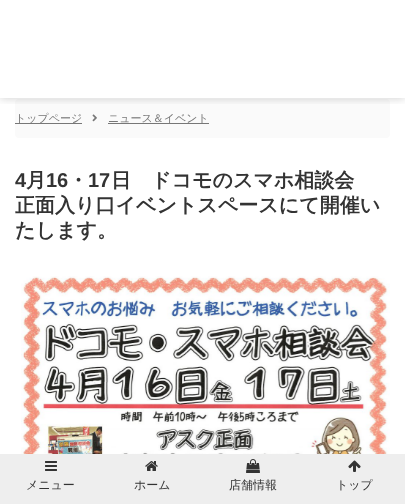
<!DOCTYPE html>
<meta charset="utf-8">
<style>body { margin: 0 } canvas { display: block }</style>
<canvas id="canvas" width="405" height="504"></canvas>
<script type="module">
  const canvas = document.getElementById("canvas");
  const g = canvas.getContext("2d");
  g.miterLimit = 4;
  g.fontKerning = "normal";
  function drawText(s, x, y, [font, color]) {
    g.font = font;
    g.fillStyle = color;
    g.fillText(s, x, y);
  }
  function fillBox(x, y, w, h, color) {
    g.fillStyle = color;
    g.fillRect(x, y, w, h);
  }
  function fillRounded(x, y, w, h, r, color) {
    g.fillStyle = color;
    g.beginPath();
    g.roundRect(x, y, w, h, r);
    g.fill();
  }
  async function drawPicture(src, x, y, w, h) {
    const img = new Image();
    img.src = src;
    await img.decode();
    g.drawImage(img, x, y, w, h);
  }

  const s1 = ["500 11px WenQuanYi Zen Hei", "#777777"];
  const s2 = ["bold 20px Liberation Sans", "#333333"];
  const s3 = ["bold 20px WenQuanYi Zen Hei", "#333333"];
  const s4 = ["500 12px WenQuanYi Zen Hei", "#333333"];

  fillBox(0, 0, 405, 504, "#FFFFFF");
  fillRounded(15, 99, 375, 39, 4, "#FAFAFA");
  g.save();
  g.beginPath();
  g.rect(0, 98, 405, 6);
  g.clip();
  g.fillStyle = "rgba(0, 0, 0, 0.2)";
  g.filter = "blur(5px)";
  g.beginPath();
  g.rect(0, 0, 405, 98);
  g.fill();
  g.filter = "none";
  g.restore();
  fillBox(15, 123, 67, 1, "#777777");
  drawText("トップページ", 15, 122, s1);
  await drawPicture("pic1.png", 92, 114, 5, 8);
  fillBox(108, 123, 101, 1, "#777777");
  drawText("ニュース＆イベント", 108, 122, s1);
  drawText("4", 15, 187, s2);
  drawText("月", 26, 187, s3);
  drawText("16", 46, 187, s2);
  drawText("・", 68, 187, s3);
  drawText("17", 88, 187, s2);
  drawText("日　ドコモのスマホ相談会", 111, 187, s3);
  drawText("正面入り口イベントスペースにて開催い", 15, 212, s3);
  drawText("たします。", 15, 237, s3);
  await drawPicture("pic2.png", 21, 276, 369, 178);
  fillBox(0, 454, 405, 50, "#EEEEEE");
  await drawPicture("pic3.png", 45, 461, 12, 10);
  drawText("メニュー", 26, 489, s4);
  await drawPicture("pic4.png", 145, 461, 13, 10);
  drawText("ホーム", 134, 489, s4);
  await drawPicture("pic5.png", 246, 459, 14, 14);
  drawText("店舗情報", 229, 489, s4);
  await drawPicture("pic6.png", 348, 460, 13, 12);
  drawText("トップ", 336, 489, s4);
</script>
